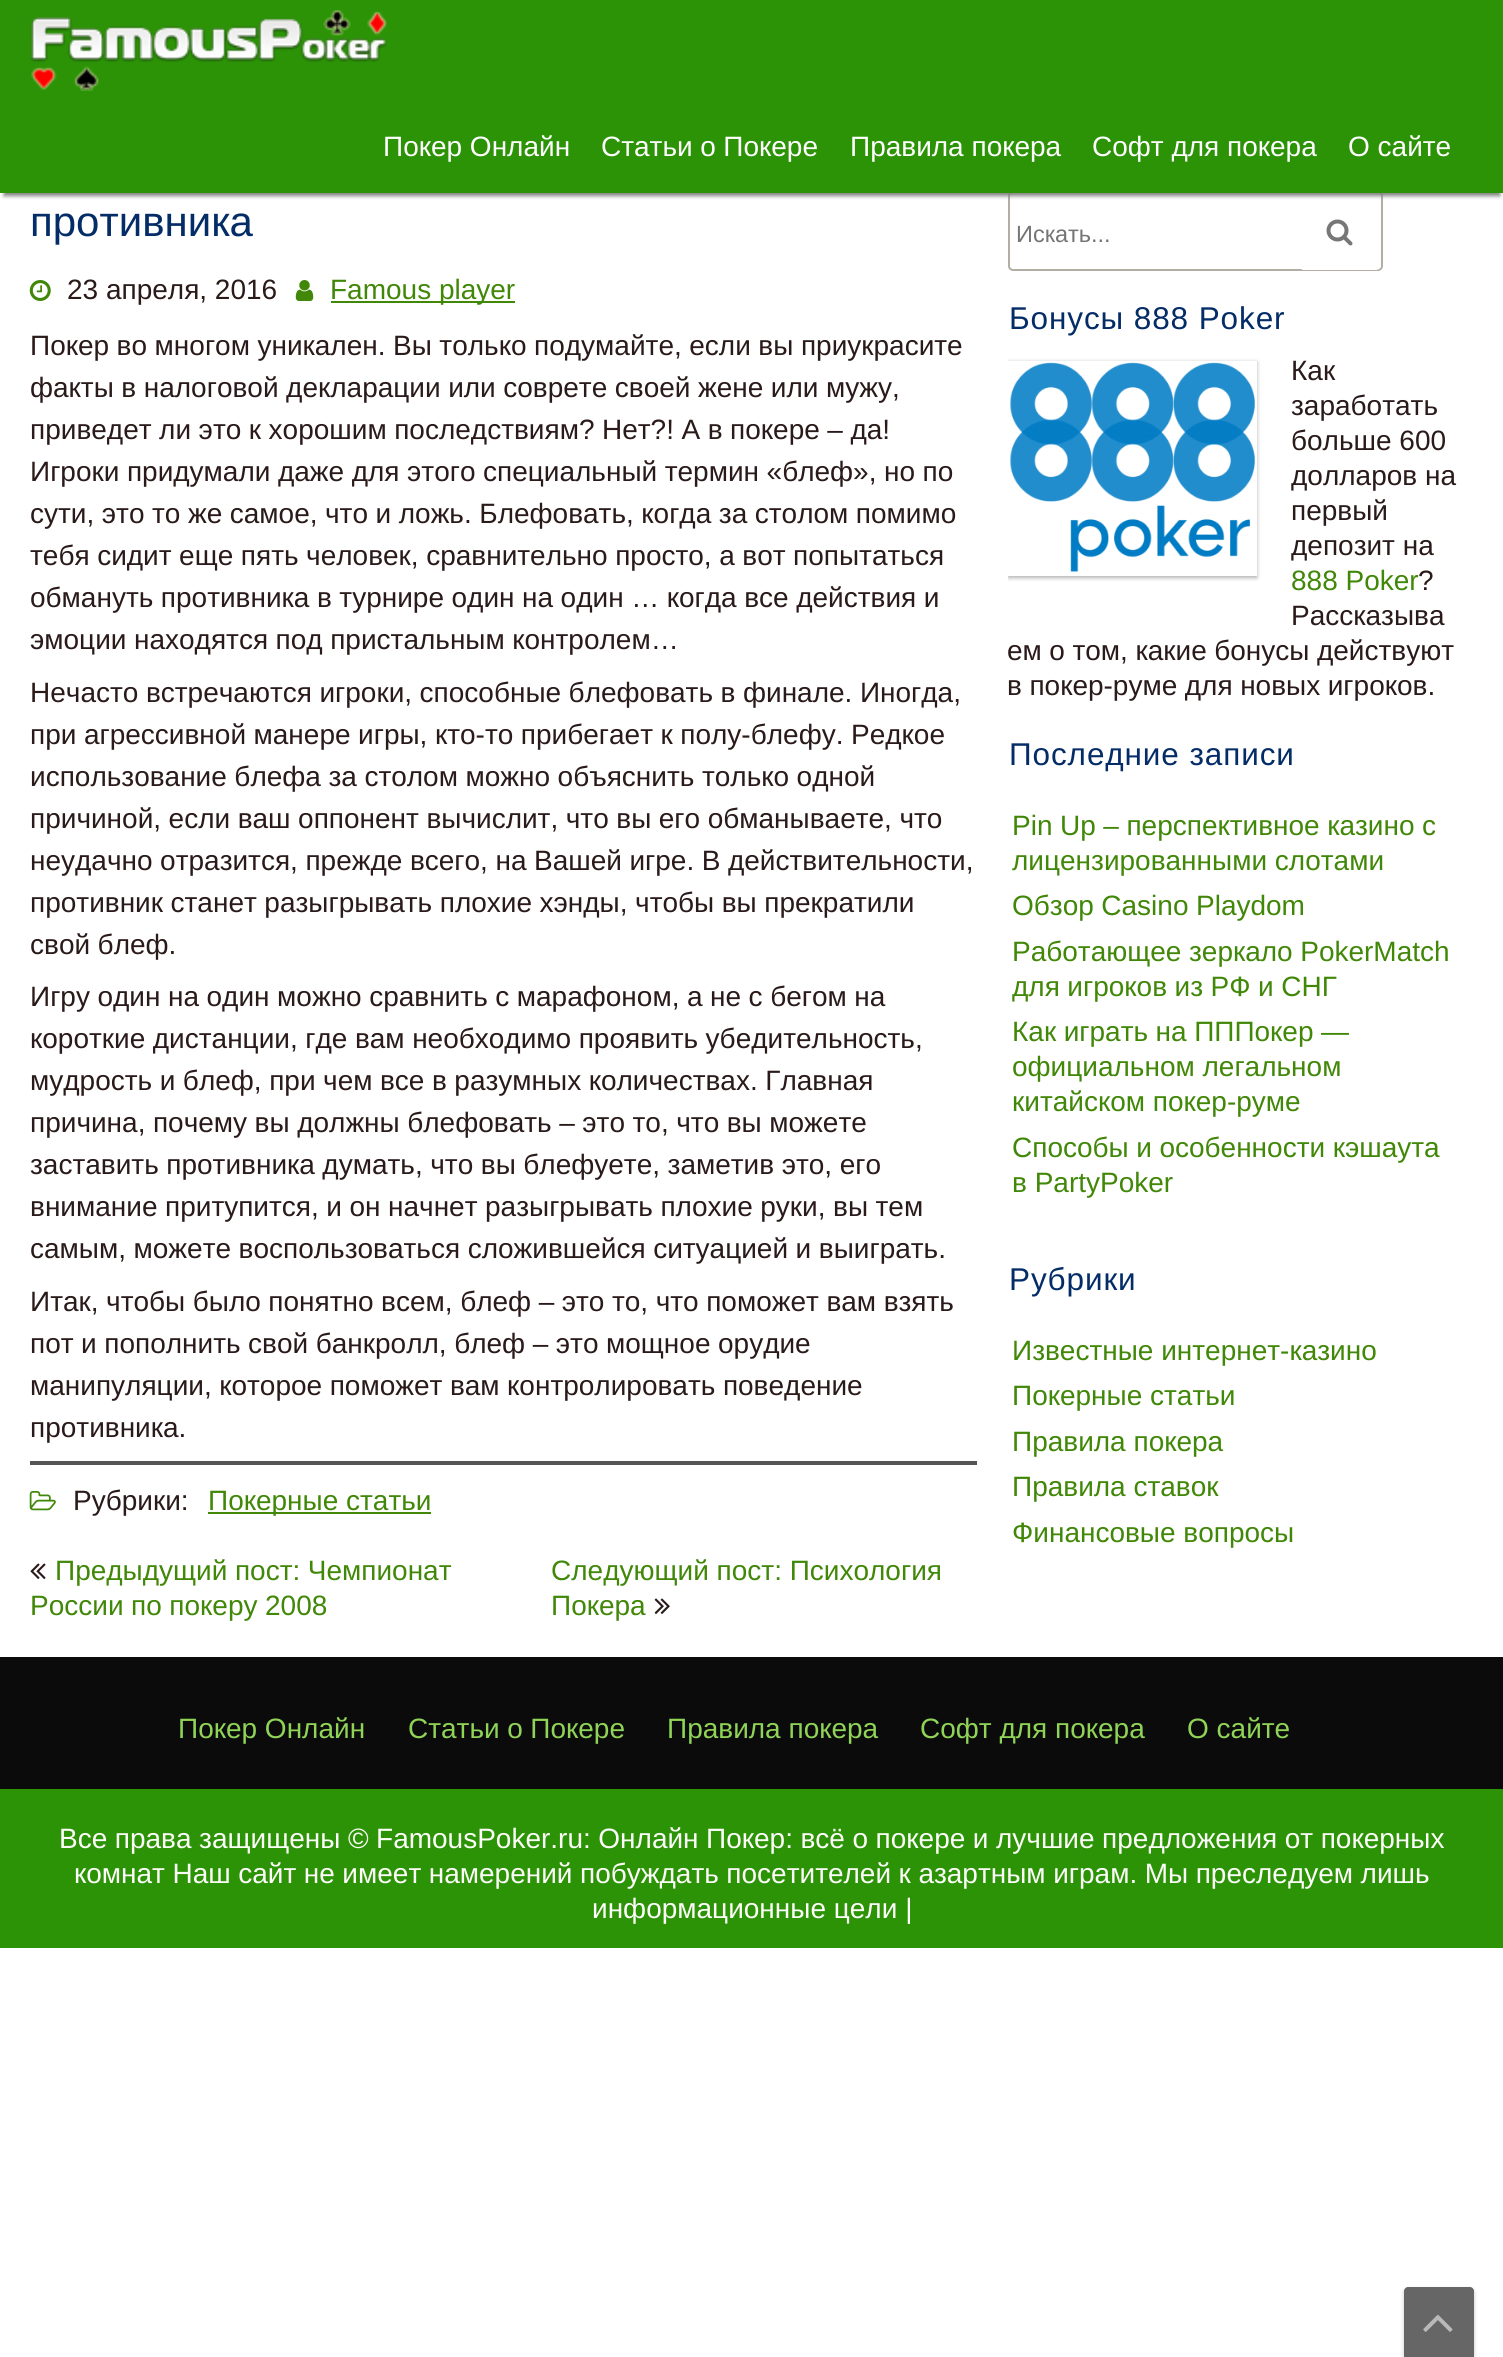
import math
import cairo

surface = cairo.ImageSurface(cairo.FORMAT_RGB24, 1503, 2357)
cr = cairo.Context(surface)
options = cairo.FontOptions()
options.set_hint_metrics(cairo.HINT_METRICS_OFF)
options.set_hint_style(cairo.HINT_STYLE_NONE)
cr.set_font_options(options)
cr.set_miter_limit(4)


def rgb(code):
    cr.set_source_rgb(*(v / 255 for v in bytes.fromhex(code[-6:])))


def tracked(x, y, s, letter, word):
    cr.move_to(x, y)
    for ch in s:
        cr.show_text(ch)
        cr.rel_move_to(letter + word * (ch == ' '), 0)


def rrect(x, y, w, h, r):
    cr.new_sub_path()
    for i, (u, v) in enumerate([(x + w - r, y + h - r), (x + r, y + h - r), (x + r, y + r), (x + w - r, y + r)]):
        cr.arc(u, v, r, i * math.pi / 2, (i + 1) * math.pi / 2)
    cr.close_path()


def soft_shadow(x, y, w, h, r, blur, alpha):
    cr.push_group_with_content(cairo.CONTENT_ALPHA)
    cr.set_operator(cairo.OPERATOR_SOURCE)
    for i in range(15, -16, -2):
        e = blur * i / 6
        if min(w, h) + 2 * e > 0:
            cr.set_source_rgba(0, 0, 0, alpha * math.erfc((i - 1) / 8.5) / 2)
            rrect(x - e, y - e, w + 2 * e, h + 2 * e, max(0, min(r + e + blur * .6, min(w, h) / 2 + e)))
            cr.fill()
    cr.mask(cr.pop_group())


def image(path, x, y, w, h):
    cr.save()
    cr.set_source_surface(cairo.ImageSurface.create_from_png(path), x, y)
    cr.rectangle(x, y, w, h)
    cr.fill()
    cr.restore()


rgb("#ffffff")
cr.paint()
rrect(1009, 192, 373, 78, 4)
rgb("#b2aea3")
cr.stroke()
rgb("#ffffff")
rrect(1299, 193, 82, 77, 5)
cr.fill()
rgb("#808080")
soft_shadow(4, 11, 1496, 185, 0, 2, 1)
rgb("#2c9307")
cr.rectangle(0, 0, 1503, 193)
cr.fill()
image("img/1.png", 30, 9, 357, 82)
image("img/2.png", 29, 280, 22, 21)
image("img/3.png", 295, 280, 19, 21)
rgb("#418708")
cr.rectangle(331, 301, 184, 2)
cr.fill()
rgb("#555555")
cr.rectangle(30, 1461, 947, 4)
cr.fill()
image("img/4.png", 29, 1491, 27, 20)
rgb("#418708")
cr.rectangle(208, 1512, 223, 2)
cr.fill()
image("img/5.png", 30, 1563, 16, 16)
image("img/6.png", 654, 1598, 16, 16)
image("img/7.png", 1326, 219, 27, 27)
cr.save()
cr.rectangle(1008, 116, 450, 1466)
cr.clip()
cr.set_fill_rule(cairo.FILL_RULE_EVEN_ODD)
cr.new_path()
cr.move_to(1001, 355)
cr.line_to(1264, 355)
cr.line_to(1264, 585)
cr.line_to(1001, 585)
cr.close_path()
cr.move_to(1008, 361)
cr.line_to(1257, 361)
cr.line_to(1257, 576)
cr.line_to(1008, 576)
cr.close_path()
cr.clip()
rgb("#000000")
soft_shadow(1008, 362, 249, 216, 0, 2, 0.3)
cr.restore()
image("img/8.png", 1009, 362, 246, 210)
rgb("#0b0b0b")
cr.rectangle(0, 1657, 1503, 132)
cr.fill()
rgb("#2c9307")
cr.rectangle(0, 1789, 1503, 159)
cr.fill()
rgb("#1a1a1a")
soft_shadow(1404, 2289, 70, 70, 4, 2, 0.25)
rgb("#666666")
cr.new_path()
cr.move_to(1408, 2287)
cr.line_to(1470, 2287)
cr.curve_to(1472, 2287, 1474, 2289, 1474, 2291)
cr.line_to(1474, 2357)
cr.line_to(1404, 2357)
cr.line_to(1404, 2291)
cr.curve_to(1404, 2289, 1406, 2287, 1408, 2287)
cr.close_path()
cr.fill()
image("img/9.png", 1423, 2314, 30, 18)
cr.select_font_face("Liberation Sans")
cr.set_font_size(28)
rgb("#ffffff")
cr.move_to(383, 156)
cr.show_text("Покер Онлайн")
tracked(601, 156, "Статьи о Покере", 0, -0.25)
for x, y, s in [
    (850, 156, "Правила покера"),
    (1092, 156, "Софт для покера"),
    (1348, 156, "О сайте"),
]:
    cr.move_to(x, y)
    cr.show_text(s)
cr.set_font_size(42)
rgb("#042c67")
cr.move_to(30, 236)
cr.show_text("противника")
cr.set_font_size(28)
rgb("#2a1a1a")
cr.move_to(67, 299)
cr.show_text("23 апреля, 2016")
rgb("#418708")
cr.move_to(330, 299)
cr.show_text("Famous player")
rgb("#2a1a1a")
for x, y, s in [
    (30, 355, "Покер во многом уникален. Вы только подумайте, если вы приукрасите"),
    (30, 397, "факты в налоговой декларации или соврете своей жене или мужу,"),
    (30, 439, "приведет ли это к хорошим последствиям? Нет?! А в покере – да!"),
    (30, 481, "Игроки придумали даже для этого специальный термин «блеф», но по"),
    (30, 523, "сути, это то же самое, что и ложь. Блефовать, когда за столом помимо"),
    (30, 565, "тебя сидит еще пять человек, сравнительно просто, а вот попытаться"),
    (30, 607, "обмануть противника в турнире один на один … когда все действия и"),
    (30, 649, "эмоции находятся под пристальным контролем…"),
    (30, 702, "Нечасто встречаются игроки, способные блефовать в финале. Иногда,"),
    (30, 744, "при агрессивной манере игры, кто-то прибегает к полу-блефу. Редкое"),
    (30, 786, "использование блефа за столом можно объяснить только одной"),
    (30, 828, "причиной, если ваш оппонент вычислит, что вы его обманываете, что"),
    (30, 870, "неудачно отразится, прежде всего, на Вашей игре. В действительности,"),
    (30, 912, "противник станет разыгрывать плохие хэнды, чтобы вы прекратили"),
    (30, 954, "свой блеф."),
    (30, 1006, "Игру один на один можно сравнить с марафоном, а не с бегом на"),
    (30, 1048, "короткие дистанции, где вам необходимо проявить убедительность,"),
    (30, 1090, "мудрость и блеф, при чем все в разумных количествах. Главная"),
    (30, 1132, "причина, почему вы должны блефовать – это то, что вы можете"),
    (30, 1174, "заставить противника думать, что вы блефуете, заметив это, его"),
    (30, 1216, "внимание притупится, и он начнет разыгрывать плохие руки, вы тем"),
    (30, 1258, "самым, можете воспользоваться сложившейся ситуацией и выиграть."),
    (30, 1311, "Итак, чтобы было понятно всем, блеф – это то, что поможет вам взять"),
    (30, 1353, "пот и пополнить свой банкролл, блеф – это мощное орудие"),
    (30, 1395, "манипуляции, которое поможет вам контролировать поведение"),
]:
    tracked(x, y, s, 0, -0.25)
cr.move_to(30, 1437)
cr.show_text("противника.")
cr.move_to(73, 1510)
cr.show_text("Рубрики:")
rgb("#418708")
cr.move_to(208, 1510)
cr.show_text("Покерные статьи")
tracked(55, 1580, "Предыдущий пост: Чемпионат", 0, -0.25)
tracked(30, 1615, "России по покеру 2008", 0, -0.25)
cr.move_to(551, 1580)
cr.show_text("Следующий пост: Психология")
cr.move_to(551, 1615)
cr.show_text("Покера")
cr.set_font_size(23.5)
rgb("#757575")
cr.move_to(1016, 242)
cr.show_text("Искать...")
cr.set_font_size(31.5)
rgb("#042c67")
tracked(1009, 329, "Бонусы 888 Poker", 0.9, 0)
cr.set_font_size(28)
rgb("#2a1a1a")
for x, y, s in [
    (1291, 380, "Как"),
    (1291, 415, "заработать"),
    (1291, 450, "больше 600"),
    (1291, 485, "долларов на"),
    (1291, 520, "первый"),
    (1291, 555, "депозит на"),
]:
    cr.move_to(x, y)
    cr.show_text(s)
rgb("#418708")
cr.move_to(1291, 590)
cr.show_text("888 Poker")
rgb("#2a1a1a")
cr.move_to(1418, 590)
cr.show_text("?")
cr.move_to(1291, 625)
cr.show_text("Рассказыва")
tracked(1007, 660, "ем о том, какие бонусы действуют", 0, -0.25)
tracked(1007, 695, "в покер-руме для новых игроков.", 0, -0.25)
cr.set_font_size(31.5)
rgb("#042c67")
tracked(1009, 765, "Последние записи", 0.9, 0)
cr.set_font_size(28)
rgb("#418708")
tracked(1012, 835, "Pin Up – перспективное казино с", 0, -0.25)
cr.move_to(1012, 870)
cr.show_text("лицензированными слотами")
for x, y, s in [
    (1012, 915, "Обзор Casino Playdom"),
    (1012, 961, "Работающее зеркало PokerMatch"),
    (1012, 996, "для игроков из РФ и СНГ"),
    (1012, 1041, "Как играть на ПППокер —"),
]:
    tracked(x, y, s, 0, -0.25)
cr.move_to(1012, 1076)
cr.show_text("официальном легальном")
cr.move_to(1012, 1111)
cr.show_text("китайском покер-руме")
tracked(1012, 1157, "Способы и особенности кэшаута", 0, -0.25)
cr.move_to(1012, 1192)
cr.show_text("в PartyPoker")
cr.set_font_size(31.5)
rgb("#042c67")
tracked(1009, 1290, "Рубрики", 0.9, 0)
cr.set_font_size(28)
rgb("#418708")
for x, y, s in [
    (1012, 1360, "Известные интернет-казино"),
    (1012, 1405, "Покерные статьи"),
    (1012, 1451, "Правила покера"),
    (1012, 1496, "Правила ставок"),
    (1012, 1542, "Финансовые вопросы"),
]:
    cr.move_to(x, y)
    cr.show_text(s)
rgb("#8fd457")
cr.move_to(178, 1738)
cr.show_text("Покер Онлайн")
tracked(408, 1738, "Статьи о Покере", 0, -0.25)
for x, y, s in [
    (667, 1738, "Правила покера"),
    (920, 1738, "Софт для покера"),
    (1187, 1738, "О сайте"),
]:
    cr.move_to(x, y)
    cr.show_text(s)
rgb("#fcfdf8")
tracked(59, 1848, "Все права защищены © FamousPoker.ru: Онлайн Покер: всё о покере и лучшие предложения от покерных", 0, -0.25)
tracked(74, 1883, "комнат Наш сайт не имеет намерений побуждать посетителей к азартным играм. Мы преследуем лишь", 0, -0.25)
cr.move_to(592, 1918)
cr.show_text("информационные цели |")
surface.write_to_png("page.png")
